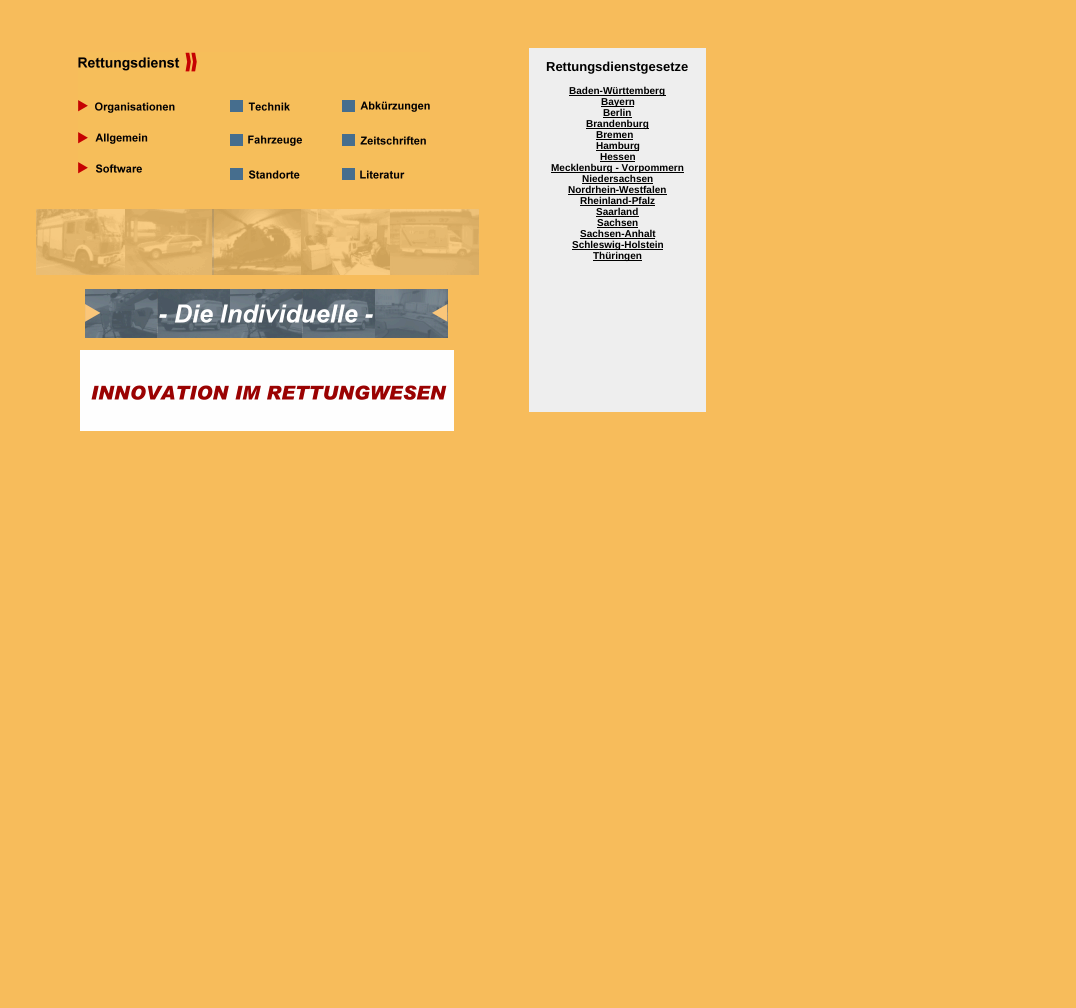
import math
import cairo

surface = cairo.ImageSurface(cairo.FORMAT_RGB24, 1076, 1008)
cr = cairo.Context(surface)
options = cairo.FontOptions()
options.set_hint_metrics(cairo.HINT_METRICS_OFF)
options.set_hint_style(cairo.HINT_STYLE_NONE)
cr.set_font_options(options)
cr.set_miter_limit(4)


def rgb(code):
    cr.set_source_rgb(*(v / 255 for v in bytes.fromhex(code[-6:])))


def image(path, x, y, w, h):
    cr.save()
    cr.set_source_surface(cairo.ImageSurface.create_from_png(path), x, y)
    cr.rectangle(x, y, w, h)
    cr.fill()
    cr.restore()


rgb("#f7bc5b")
cr.paint()
image("img/1.png", 78, 52, 352, 128)
for x, y, w, h, color in [
    (529, 48, 177, 364, "#eeeeee"),
    (569, 95, 97, 1, "#000000"),
    (601, 106, 33, 1, "#000000"),
    (603, 117, 29, 1, "#000000"),
    (586, 128, 63, 1, "#000000"),
    (596, 139, 37, 1, "#000000"),
    (596, 150, 43, 1, "#000000"),
    (600, 161, 35, 1, "#000000"),
    (551, 172, 133, 1, "#000000"),
    (582, 183, 71, 1, "#000000"),
    (568, 194, 99, 1, "#000000"),
    (580, 205, 75, 1, "#000000"),
    (596, 216, 43, 1, "#000000"),
    (597, 227, 41, 1, "#000000"),
    (580, 238, 75, 1, "#000000"),
    (572, 249, 91, 1, "#000000"),
    (593, 260, 49, 1, "#000000"),
]:
    rgb(color)
    cr.rectangle(x, y, w, h)
    cr.fill()
image("img/2.png", 36, 209, 443, 66)
image("img/3.png", 85, 289, 363, 49)
image("img/4.png", 80, 350, 374, 81)
cr.select_font_face("Liberation Sans", cairo.FONT_SLANT_NORMAL, cairo.FONT_WEIGHT_BOLD)
cr.set_font_size(13)
cr.move_to(546, 71)
cr.show_text("Rettungsdienstgesetze")
cr.set_font_size(10)
for x, y, s in [
    (569, 94, "Baden-Württemberg"),
    (601, 105, "Bayern"),
    (603, 116, "Berlin"),
    (586, 127, "Brandenburg"),
    (596, 138, "Bremen"),
    (596, 149, "Hamburg"),
    (600, 160, "Hessen"),
    (551, 171, "Mecklenburg - Vorpommern"),
    (582, 182, "Niedersachsen"),
    (568, 193, "Nordrhein-Westfalen"),
    (580, 204, "Rheinland-Pfalz"),
    (596, 215, "Saarland"),
    (597, 226, "Sachsen"),
    (580, 237, "Sachsen-Anhalt"),
    (572, 248, "Schleswig-Holstein"),
    (593, 259, "Thüringen"),
]:
    cr.move_to(x, y)
    cr.show_text(s)
surface.write_to_png("page.png")
